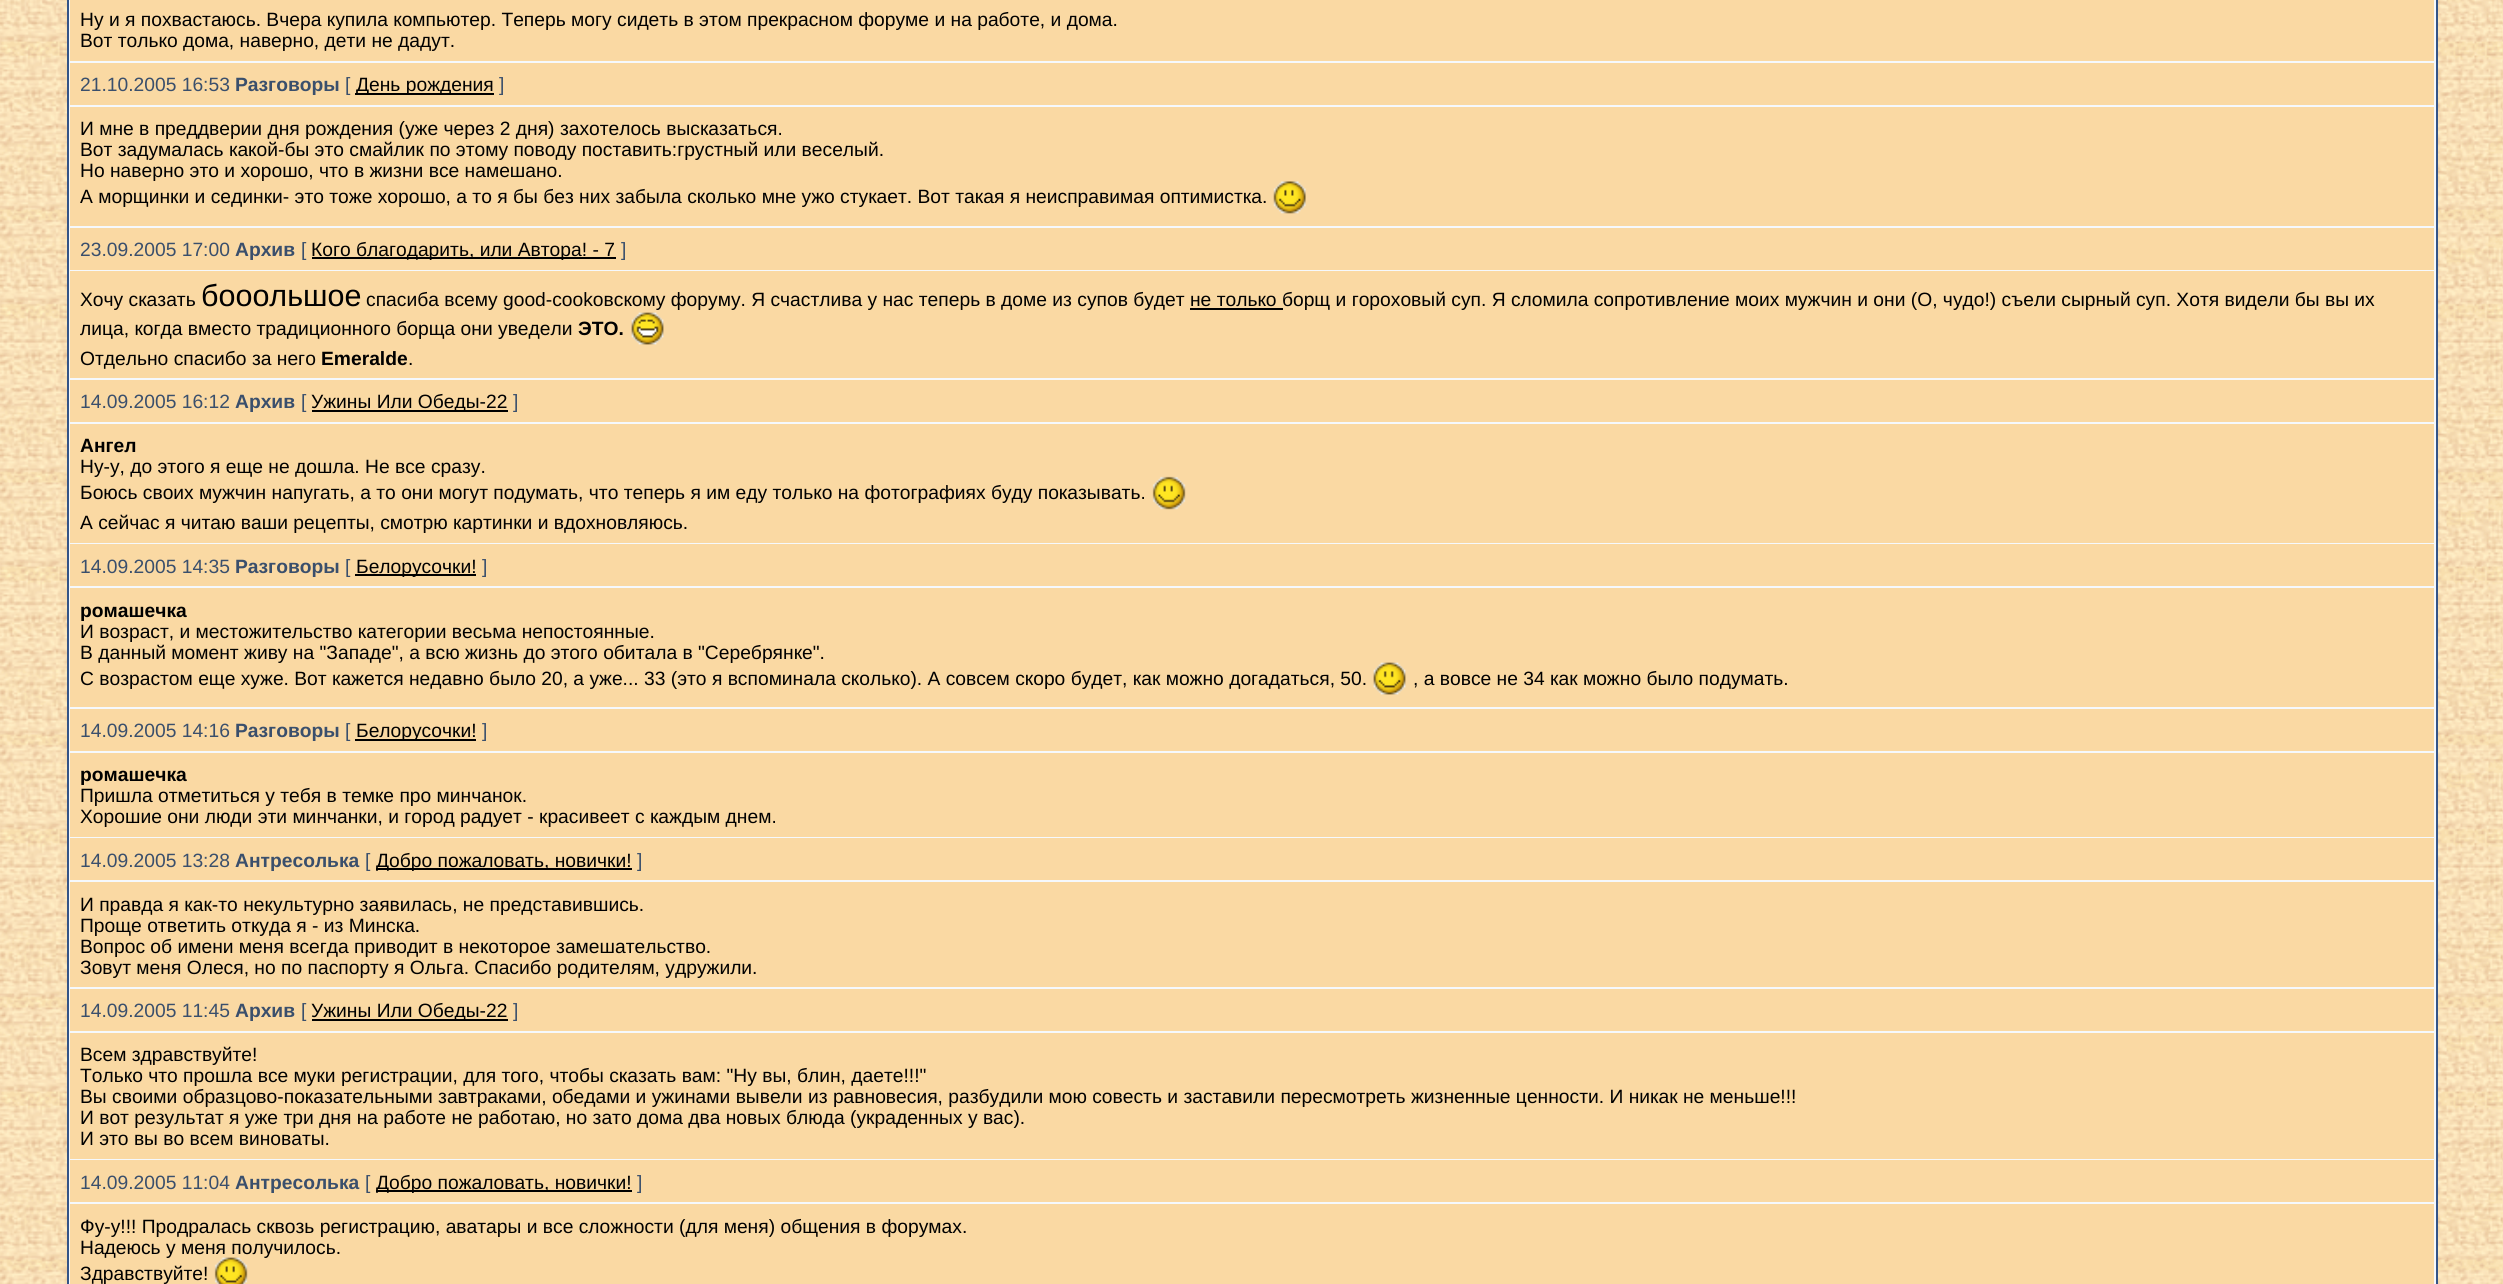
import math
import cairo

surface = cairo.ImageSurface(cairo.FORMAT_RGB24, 2503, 1284)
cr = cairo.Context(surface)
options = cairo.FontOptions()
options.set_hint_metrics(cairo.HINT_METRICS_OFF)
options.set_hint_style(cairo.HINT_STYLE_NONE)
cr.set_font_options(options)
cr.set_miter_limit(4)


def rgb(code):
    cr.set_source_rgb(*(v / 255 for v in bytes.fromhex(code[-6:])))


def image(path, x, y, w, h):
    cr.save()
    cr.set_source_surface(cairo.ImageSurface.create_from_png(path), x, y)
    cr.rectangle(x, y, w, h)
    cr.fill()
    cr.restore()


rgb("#ffffff")
cr.paint()
image("img/1.png", 0, 0, 2503, 1284)
rgb("#f5f9fd")
cr.rectangle(68, -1, 2369, 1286)
cr.fill_preserve()
rgb("#345487")
cr.stroke()
for x, y, w, h, color in [
    (70, 0, 2364, 61, "#fad9a3"),
    (70, 63, 2364, 42, "#fad9a3"),
    (355, 93, 139, 2, "#000000"),
    (70, 107, 2364, 119, "#fad9a3"),
]:
    rgb(color)
    cr.rectangle(x, y, w, h)
    cr.fill()
image("img/2.png", 1273, 181, 33, 33)
for x, y, w, h, color in [
    (70, 228, 2364, 42, "#fad9a3"),
    (312, 257, 304, 2, "#000000"),
    (70, 271, 2364, 107, "#fad9a3"),
    (1190, 308, 93, 2, "#000000"),
]:
    rgb(color)
    cr.rectangle(x, y, w, h)
    cr.fill()
image("img/3.png", 631, 312, 33, 33)
for x, y, w, h, color in [
    (70, 380, 2364, 42, "#fad9a3"),
    (312, 410, 196, 2, "#000000"),
    (70, 424, 2364, 119, "#fad9a3"),
]:
    rgb(color)
    cr.rectangle(x, y, w, h)
    cr.fill()
image("img/4.png", 1152, 476, 34, 34)
for x, y, w, h, color in [
    (70, 544, 2364, 42, "#fad9a3"),
    (355, 574, 121, 2, "#000000"),
    (70, 588, 2364, 119, "#fad9a3"),
]:
    rgb(color)
    cr.rectangle(x, y, w, h)
    cr.fill()
image("img/5.png", 1373, 662, 33, 33)
for x, y, w, h, color in [
    (70, 709, 2364, 42, "#fad9a3"),
    (355, 739, 121, 2, "#000000"),
    (70, 753, 2364, 84, "#fad9a3"),
    (70, 838, 2364, 42, "#fad9a3"),
    (376, 868, 256, 2, "#000000"),
    (70, 882, 2364, 105, "#fad9a3"),
    (70, 989, 2364, 42, "#fad9a3"),
    (312, 1019, 196, 2, "#000000"),
    (70, 1033, 2364, 126, "#fad9a3"),
    (70, 1160, 2364, 42, "#fad9a3"),
    (376, 1190, 256, 2, "#000000"),
    (70, 1204, 2364, 80, "#fad9a3"),
]:
    rgb(color)
    cr.rectangle(x, y, w, h)
    cr.fill()
cr.select_font_face("Liberation Sans")
cr.set_font_size(19.25)
rgb("#000000")
cr.move_to(80, 26)
cr.show_text("Ну и я похвастаюсь. Вчера купила компьютер. Теперь могу сидеть в этом прекрасном форуме и на работе, и дома.")
cr.move_to(80, 47)
cr.show_text("Вот только дома, наверно, дети не дадут.")
rgb("#3a4f6c")
cr.move_to(80, 91)
cr.show_text("21.10.2005 16:53")
cr.select_font_face("Liberation Sans", cairo.FONT_SLANT_NORMAL, cairo.FONT_WEIGHT_BOLD)
cr.move_to(235, 91)
cr.show_text("Разговоры")
cr.select_font_face("Liberation Sans")
cr.move_to(345, 91)
cr.show_text("[")
rgb("#000000")
cr.move_to(356, 91)
cr.show_text("День рождения")
rgb("#3a4f6c")
cr.move_to(499, 91)
cr.show_text("]")
rgb("#000000")
for x, y, s in [
    (80, 135, "И мне в преддверии дня рождения (уже через 2 дня) захотелось высказаться."),
    (80, 156, "Вот задумалась какой-бы это смайлик по этому поводу поставить:грустный или веселый."),
    (80, 177, "Но наверно это и хорошо, что в жизни все намешано."),
    (80, 203, "А морщинки и сединки- это тоже хорошо, а то я бы без них забыла сколько мне ужо стукает. Вот такая я неисправимая оптимистка."),
]:
    cr.move_to(x, y)
    cr.show_text(s)
rgb("#3a4f6c")
cr.move_to(80, 256)
cr.show_text("23.09.2005 17:00")
cr.select_font_face("Liberation Sans", cairo.FONT_SLANT_NORMAL, cairo.FONT_WEIGHT_BOLD)
cr.move_to(235, 256)
cr.show_text("Архив")
cr.select_font_face("Liberation Sans")
cr.move_to(301, 256)
cr.show_text("[")
rgb("#000000")
cr.move_to(311, 256)
cr.show_text("Кого благодарить, или Автора! - 7")
rgb("#3a4f6c")
cr.move_to(621, 256)
cr.show_text("]")
rgb("#000000")
cr.move_to(80, 306)
cr.show_text("Хочу сказать")
cr.set_font_size(30.5)
cr.move_to(201, 306)
cr.show_text("бооольшое")
cr.set_font_size(19.25)
cr.move_to(366, 306)
cr.show_text("спасиба всему good-cookовскому форуму. Я счастлива у нас теперь в доме из супов будет не только борщ и гороховый суп. Я сломила сопротивление моих мужчин и они (О, чудо!) съели сырный суп. Хотя видели бы вы их")
cr.move_to(80, 335)
cr.show_text("лица, когда вместо традиционного борща они уведели")
cr.select_font_face("Liberation Sans", cairo.FONT_SLANT_NORMAL, cairo.FONT_WEIGHT_BOLD)
cr.move_to(578, 335)
cr.show_text("ЭТО.")
cr.select_font_face("Liberation Sans")
cr.move_to(80, 365)
cr.show_text("Отдельно спасибо за него")
cr.select_font_face("Liberation Sans", cairo.FONT_SLANT_NORMAL, cairo.FONT_WEIGHT_BOLD)
cr.move_to(321, 365)
cr.show_text("Еmeralde")
cr.select_font_face("Liberation Sans")
cr.move_to(408, 365)
cr.show_text(".")
rgb("#3a4f6c")
cr.move_to(80, 408)
cr.show_text("14.09.2005 16:12")
cr.select_font_face("Liberation Sans", cairo.FONT_SLANT_NORMAL, cairo.FONT_WEIGHT_BOLD)
cr.move_to(235, 408)
cr.show_text("Архив")
cr.select_font_face("Liberation Sans")
cr.move_to(301, 408)
cr.show_text("[")
rgb("#000000")
cr.move_to(311, 408)
cr.show_text("Ужины Или Обеды-22")
rgb("#3a4f6c")
cr.move_to(513, 408)
cr.show_text("]")
cr.select_font_face("Liberation Sans", cairo.FONT_SLANT_NORMAL, cairo.FONT_WEIGHT_BOLD)
rgb("#000000")
cr.move_to(80, 452)
cr.show_text("Ангел")
cr.select_font_face("Liberation Sans")
for x, y, s in [
    (80, 473, "Ну-у, до этого я еще не дошла. Не все сразу."),
    (80, 499, "Боюсь своих мужчин напугать, а то они могут подумать, что теперь я им еду только на фотографиях буду показывать."),
    (80, 529, "А сейчас я читаю ваши рецепты, смотрю картинки и вдохновляюсь."),
]:
    cr.move_to(x, y)
    cr.show_text(s)
rgb("#3a4f6c")
cr.move_to(80, 573)
cr.show_text("14.09.2005 14:35")
cr.select_font_face("Liberation Sans", cairo.FONT_SLANT_NORMAL, cairo.FONT_WEIGHT_BOLD)
cr.move_to(235, 573)
cr.show_text("Разговоры")
cr.select_font_face("Liberation Sans")
cr.move_to(345, 573)
cr.show_text("[")
rgb("#000000")
cr.move_to(356, 573)
cr.show_text("Белорусочки!")
rgb("#3a4f6c")
cr.move_to(482, 573)
cr.show_text("]")
cr.select_font_face("Liberation Sans", cairo.FONT_SLANT_NORMAL, cairo.FONT_WEIGHT_BOLD)
rgb("#000000")
cr.move_to(80, 617)
cr.show_text("ромашечка")
cr.select_font_face("Liberation Sans")
for x, y, s in [
    (80, 638, "И возраст, и местожительство категории весьма непостоянные."),
    (80, 659, "В данный момент живу на \"Западе\", а всю жизнь до этого обитала в \"Серебрянке\"."),
    (80, 685, "С возрастом еще хуже. Вот кажется недавно было 20, а уже... 33 (это я вспоминала сколько). А совсем скоро будет, как можно догадаться, 50."),
    (1413, 685, ", а вовсе не 34 как можно было подумать."),
]:
    cr.move_to(x, y)
    cr.show_text(s)
rgb("#3a4f6c")
cr.move_to(80, 737)
cr.show_text("14.09.2005 14:16")
cr.select_font_face("Liberation Sans", cairo.FONT_SLANT_NORMAL, cairo.FONT_WEIGHT_BOLD)
cr.move_to(235, 737)
cr.show_text("Разговоры")
cr.select_font_face("Liberation Sans")
cr.move_to(345, 737)
cr.show_text("[")
rgb("#000000")
cr.move_to(356, 737)
cr.show_text("Белорусочки!")
rgb("#3a4f6c")
cr.move_to(482, 737)
cr.show_text("]")
cr.select_font_face("Liberation Sans", cairo.FONT_SLANT_NORMAL, cairo.FONT_WEIGHT_BOLD)
rgb("#000000")
cr.move_to(80, 781)
cr.show_text("ромашечка")
cr.select_font_face("Liberation Sans")
cr.move_to(80, 802)
cr.show_text("Пришла отметиться у тебя в темке про минчанок.")
cr.move_to(80, 823)
cr.show_text("Хорошие они люди эти минчанки, и город радует - красивеет с каждым днем.")
rgb("#3a4f6c")
cr.move_to(80, 867)
cr.show_text("14.09.2005 13:28")
cr.select_font_face("Liberation Sans", cairo.FONT_SLANT_NORMAL, cairo.FONT_WEIGHT_BOLD)
cr.move_to(235, 867)
cr.show_text("Антресолька")
cr.select_font_face("Liberation Sans")
cr.move_to(365, 867)
cr.show_text("[")
rgb("#000000")
cr.move_to(376, 867)
cr.show_text("Добро пожаловать, новички!")
rgb("#3a4f6c")
cr.move_to(637, 867)
cr.show_text("]")
rgb("#000000")
for x, y, s in [
    (80, 911, "И правда я как-то некультурно заявилась, не представившись."),
    (80, 932, "Проще ответить откуда я - из Минска."),
    (80, 953, "Вопрос об имени меня всегда приводит в некоторое замешательство."),
    (80, 974, "Зовут меня Олеся, но по паспорту я Ольга. Спасибо родителям, удружили."),
]:
    cr.move_to(x, y)
    cr.show_text(s)
rgb("#3a4f6c")
cr.move_to(80, 1017)
cr.show_text("14.09.2005 11:45")
cr.select_font_face("Liberation Sans", cairo.FONT_SLANT_NORMAL, cairo.FONT_WEIGHT_BOLD)
cr.move_to(235, 1017)
cr.show_text("Архив")
cr.select_font_face("Liberation Sans")
cr.move_to(301, 1017)
cr.show_text("[")
rgb("#000000")
cr.move_to(311, 1017)
cr.show_text("Ужины Или Обеды-22")
rgb("#3a4f6c")
cr.move_to(513, 1017)
cr.show_text("]")
rgb("#000000")
for x, y, s in [
    (80, 1061, "Всем здравствуйте!"),
    (80, 1082, "Только что прошла все муки регистрации, для того, чтобы сказать вам: \"Ну вы, блин, даете!!!\""),
    (80, 1103, "Вы своими образцово-показательными завтраками, обедами и ужинами вывели из равновесия, разбудили мою совесть и заставили пересмотреть жизненные ценности. И никак не меньше!!!"),
    (80, 1124, "И вот результат я уже три дня на работе не работаю, но зато дома два новых блюда (украденных у вас)."),
    (80, 1145, "И это вы во всем виноваты."),
]:
    cr.move_to(x, y)
    cr.show_text(s)
rgb("#3a4f6c")
cr.move_to(80, 1189)
cr.show_text("14.09.2005 11:04")
cr.select_font_face("Liberation Sans", cairo.FONT_SLANT_NORMAL, cairo.FONT_WEIGHT_BOLD)
cr.move_to(235, 1189)
cr.show_text("Антресолька")
cr.select_font_face("Liberation Sans")
cr.move_to(365, 1189)
cr.show_text("[")
rgb("#000000")
cr.move_to(376, 1189)
cr.show_text("Добро пожаловать, новички!")
rgb("#3a4f6c")
cr.move_to(637, 1189)
cr.show_text("]")
rgb("#000000")
for x, y, s in [
    (80, 1233, "Фу-у!!! Продралась сквозь регистрацию, аватары и все сложности (для меня) общения в форумах."),
    (80, 1254, "Надеюсь у меня получилось."),
    (80, 1280, "Здравствуйте!"),
]:
    cr.move_to(x, y)
    cr.show_text(s)
image("img/6.png", 214, 1257, 34, 27)
surface.write_to_png("page.png")
